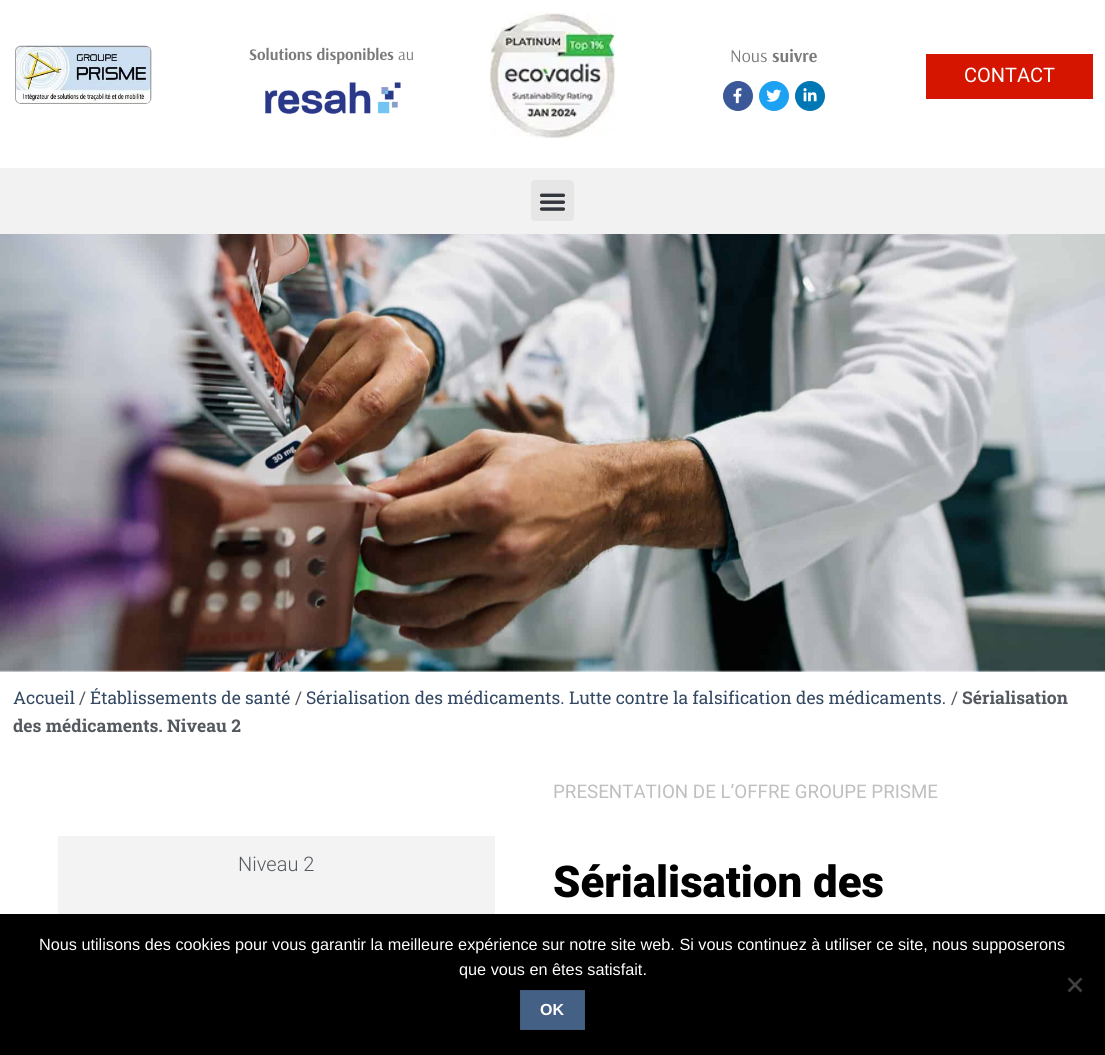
import math
import cairo

surface = cairo.ImageSurface(cairo.FORMAT_RGB24, 1105, 1055)
cr = cairo.Context(surface)
options = cairo.FontOptions()
options.set_hint_metrics(cairo.HINT_METRICS_OFF)
options.set_hint_style(cairo.HINT_STYLE_NONE)
cr.set_font_options(options)
cr.set_miter_limit(4)


def rgb(code):
    cr.set_source_rgb(*(v / 255 for v in bytes.fromhex(code[-6:])))


def rrect(x, y, w, h, r):
    cr.new_sub_path()
    for i, (u, v) in enumerate([(x + w - r, y + h - r), (x + r, y + h - r), (x + r, y + r), (x + w - r, y + r)]):
        cr.arc(u, v, r, i * math.pi / 2, (i + 1) * math.pi / 2)
    cr.close_path()


def image(path, x, y, w, h):
    cr.save()
    cr.set_source_surface(cairo.ImageSurface.create_from_png(path), x, y)
    cr.rectangle(x, y, w, h)
    cr.fill()
    cr.restore()


rgb("#ffffff")
cr.paint()
image("img/1.png", 15, 45, 137, 59)
image("img/2.png", 265, 82, 136, 32)
image("img/3.png", 490, 12, 125, 126)
rgb("#3b5998")
cr.arc(738, 96, 15, 0, 2 * math.pi)
cr.fill()
image("img/4.png", 733, 88, 9, 16)
rgb("#1da1f2")
cr.arc(774, 96, 15, 0, 2 * math.pi)
cr.fill()
image("img/5.png", 766, 89, 16, 13)
rgb("#0077b5")
cr.arc(810, 96, 15, 0, 2 * math.pi)
cr.fill()
image("img/6.png", 803, 88, 14, 14)
rgb("#d61500")
cr.rectangle(926, 54, 167, 45)
cr.fill()
rgb("#f2f2f2")
cr.rectangle(0, 168, 1105, 66)
cr.fill()
rgb("#e6e6e6")
rrect(531, 180, 43, 41, 4)
cr.fill()
image("img/7.png", 539, 193, 27, 18)
image("img/8.png", 0, 234, 1105, 438)
rgb("#f3f3f3")
cr.rectangle(58, 836, 437, 78)
cr.fill()
rgb("#000000")
cr.rectangle(0, 914, 1105, 141)
cr.fill()
rgb("#404040")
cr.new_path()
cr.move_to(1080.5, 977.5)
cr.line_to(1082.5, 979)
cr.line_to(1069.5, 992.5)
cr.line_to(1067.5, 990.5)
cr.close_path()
cr.fill()
cr.new_path()
cr.move_to(1067.5, 979)
cr.line_to(1069.5, 977.5)
cr.line_to(1082.5, 990.5)
cr.line_to(1080.5, 992.5)
cr.close_path()
cr.fill()
rgb("#446084")
cr.rectangle(520.5, 990.5, 64, 39)
cr.fill_preserve()
rgb("#415b7d")
cr.set_line_width(1)
cr.stroke()
cr.select_font_face("Arsenal", cairo.FONT_SLANT_NORMAL, cairo.FONT_WEIGHT_BOLD)
cr.set_font_size(16.25)
rgb("#7a7a7a")
cr.move_to(249, 60)
cr.show_text("Solutions disponibles")
cr.select_font_face("Arsenal")
cr.move_to(398, 60)
cr.show_text("au")
cr.set_font_size(18)
cr.move_to(730, 62)
cr.show_text("Nous")
cr.select_font_face("Arsenal", cairo.FONT_SLANT_NORMAL, cairo.FONT_WEIGHT_BOLD)
cr.move_to(772, 62)
cr.show_text("suivre")
cr.select_font_face("Roboto")
cr.set_font_size(20)
rgb("#ffffff")
cr.move_to(964, 82)
cr.show_text("CONTACT")
cr.select_font_face("Roboto Slab")
cr.set_font_size(17.5)
rgb("#334862")
cr.move_to(13, 704)
cr.show_text("Accueil")
rgb("#54595f")
cr.move_to(79, 704)
cr.show_text("/")
rgb("#334862")
cr.move_to(90, 704)
cr.show_text("Établissements de santé")
rgb("#54595f")
cr.move_to(295, 704)
cr.show_text("/")
rgb("#334862")
cr.move_to(306, 704)
cr.show_text("Sérialisation des médicaments. Lutte contre la falsification des médicaments.")
rgb("#54595f")
cr.move_to(951, 704)
cr.show_text("/")
cr.select_font_face("Roboto Slab", cairo.FONT_SLANT_NORMAL, cairo.FONT_WEIGHT_BOLD)
cr.move_to(962, 704)
cr.show_text("Sérialisation")
cr.move_to(13, 732)
cr.show_text("des médicaments. Niveau 2")
cr.select_font_face("Roboto Light")
cr.set_font_size(20)
cr.move_to(238, 871)
cr.show_text("Niveau 2")
cr.select_font_face("Roboto")
cr.set_font_size(18.75)
rgb("#bfbfbf")
cr.move_to(553, 798)
cr.show_text("PRESENTATION DE L’OFFRE GROUPE PRISME")
cr.select_font_face("Roboto Black")
cr.set_font_size(43.75)
rgb("#000000")
cr.move_to(553, 897)
cr.show_text("Sérialisation des")
cr.select_font_face("Liberation Sans")
cr.set_font_size(16.25)
rgb("#ffffff")
cr.move_to(39, 950)
cr.show_text("Nous utilisons des cookies pour vous garantir la meilleure expérience sur notre site web. Si vous continuez à utiliser ce site, nous supposerons")
cr.move_to(459, 975)
cr.show_text("que vous en êtes satisfait.")
cr.select_font_face("Liberation Sans", cairo.FONT_SLANT_NORMAL, cairo.FONT_WEIGHT_BOLD)
cr.set_font_size(16)
cr.move_to(540, 1015)
cr.show_text("OK")
surface.write_to_png("page.png")
